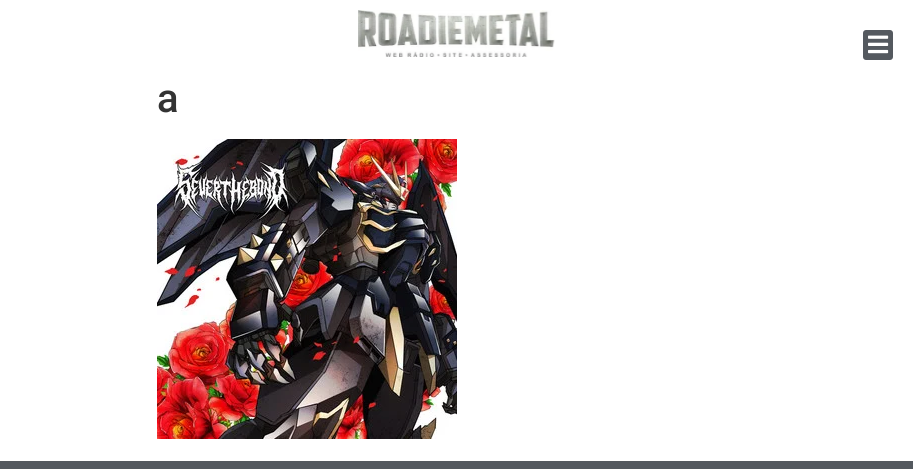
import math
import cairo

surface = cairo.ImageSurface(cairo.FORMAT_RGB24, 913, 469)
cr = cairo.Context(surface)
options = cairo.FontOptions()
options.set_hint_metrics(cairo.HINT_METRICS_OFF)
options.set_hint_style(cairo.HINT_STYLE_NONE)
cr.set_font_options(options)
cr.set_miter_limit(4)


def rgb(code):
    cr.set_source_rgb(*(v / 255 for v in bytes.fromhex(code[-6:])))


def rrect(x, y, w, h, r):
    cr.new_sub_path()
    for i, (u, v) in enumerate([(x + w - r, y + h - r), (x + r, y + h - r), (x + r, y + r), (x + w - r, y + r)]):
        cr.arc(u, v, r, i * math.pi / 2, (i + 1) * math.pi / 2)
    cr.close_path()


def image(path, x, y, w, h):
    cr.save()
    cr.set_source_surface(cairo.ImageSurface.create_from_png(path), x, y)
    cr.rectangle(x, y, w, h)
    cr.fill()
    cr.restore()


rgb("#ffffff")
cr.paint()
image("img/1.png", 358, 10, 197, 47)
rgb("#54595f")
rrect(863, 30, 30, 30, 3)
cr.fill()
image("img/2.png", 868, 35, 21, 19)
image("img/3.png", 157, 139, 300, 300)
cr.rectangle(0, 461, 913, 8)
cr.fill()
cr.select_font_face("Roboto Medium")
cr.set_font_size(40)
rgb("#333333")
cr.move_to(157, 112)
cr.show_text("a")
surface.write_to_png("page.png")
